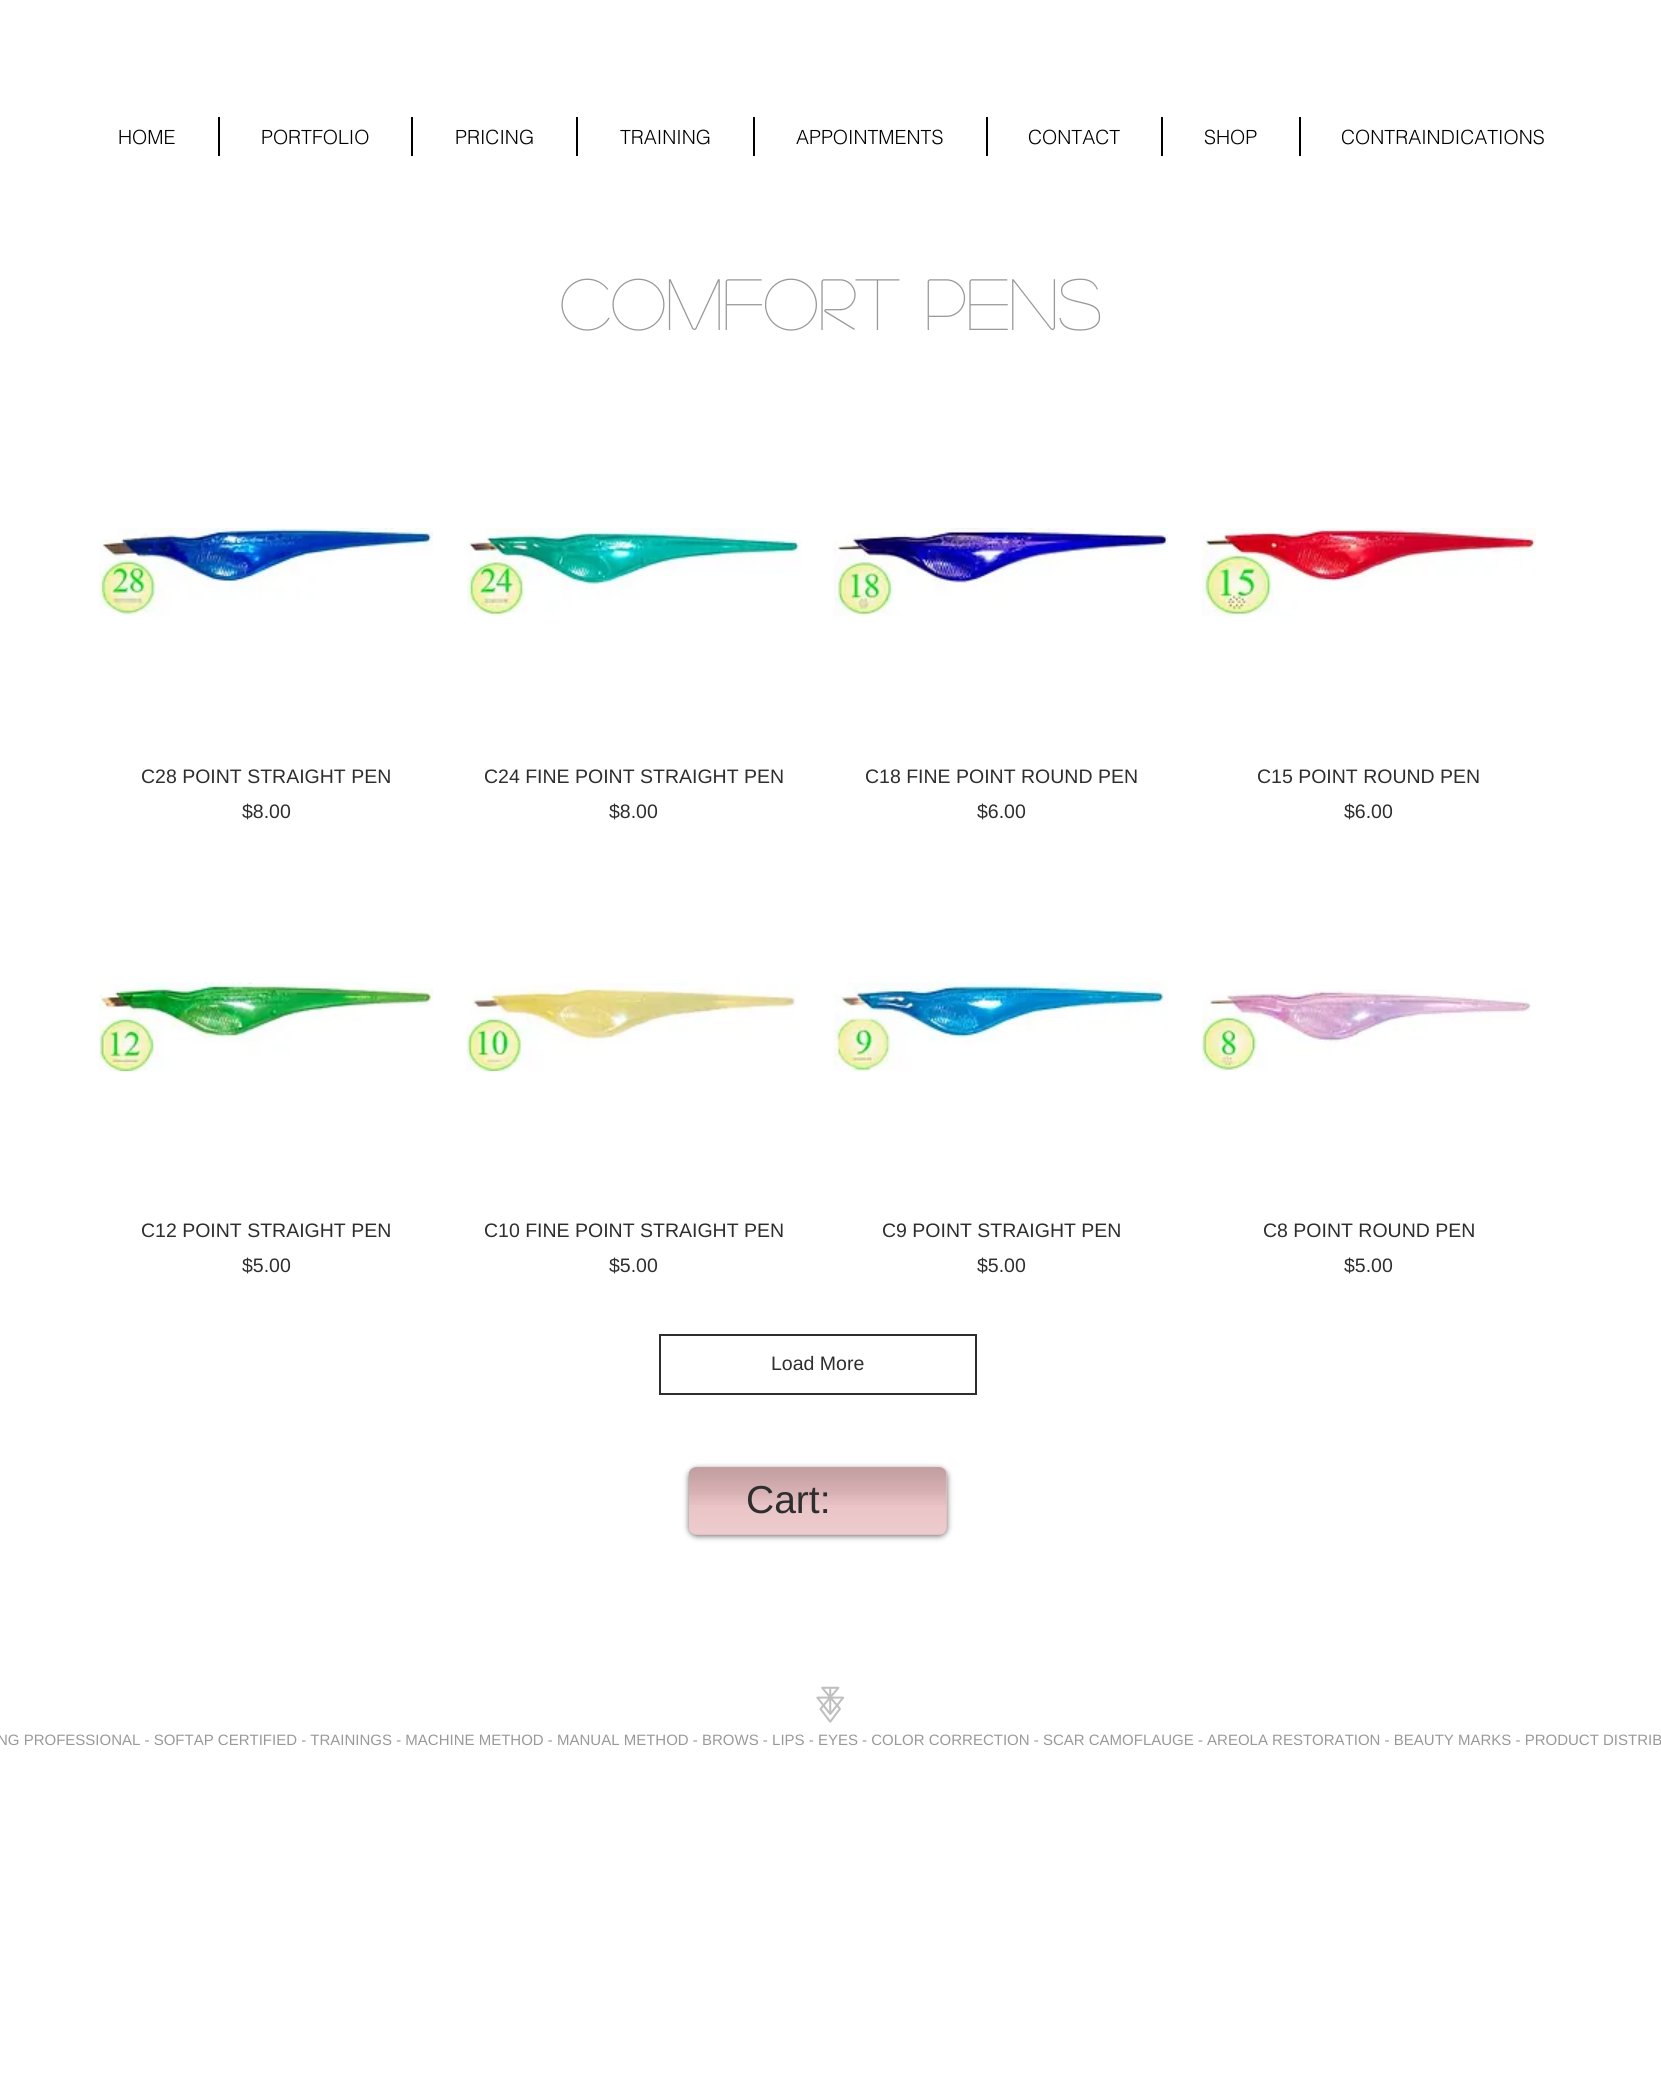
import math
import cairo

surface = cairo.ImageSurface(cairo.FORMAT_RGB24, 1661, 2085)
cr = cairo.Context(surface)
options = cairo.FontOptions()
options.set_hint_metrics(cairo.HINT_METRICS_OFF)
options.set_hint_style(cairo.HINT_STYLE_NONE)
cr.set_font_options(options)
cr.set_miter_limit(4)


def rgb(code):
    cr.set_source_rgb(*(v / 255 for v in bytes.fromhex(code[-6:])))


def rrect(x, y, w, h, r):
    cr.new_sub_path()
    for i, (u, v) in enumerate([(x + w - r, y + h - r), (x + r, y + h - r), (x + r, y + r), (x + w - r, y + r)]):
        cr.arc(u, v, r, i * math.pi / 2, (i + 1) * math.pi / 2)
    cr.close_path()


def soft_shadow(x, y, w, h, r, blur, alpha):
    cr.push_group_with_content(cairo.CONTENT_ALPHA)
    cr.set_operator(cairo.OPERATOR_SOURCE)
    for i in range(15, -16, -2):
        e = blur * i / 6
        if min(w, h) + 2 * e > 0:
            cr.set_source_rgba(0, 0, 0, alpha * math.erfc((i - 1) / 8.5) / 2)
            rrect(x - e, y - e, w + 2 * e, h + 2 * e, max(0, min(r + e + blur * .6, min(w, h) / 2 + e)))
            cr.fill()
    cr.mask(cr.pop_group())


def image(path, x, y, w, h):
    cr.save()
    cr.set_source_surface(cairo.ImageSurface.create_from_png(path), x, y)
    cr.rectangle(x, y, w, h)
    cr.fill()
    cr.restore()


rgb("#ffffff")
cr.paint()
for x, y, w, h, color in [
    (218, 117, 2, 39, "#000000"),
    (411, 117, 2, 39, "#000000"),
    (576, 117, 2, 39, "#000000"),
    (753, 117, 2, 39, "#000000"),
    (986, 117, 2, 39, "#000000"),
    (1161, 117, 2, 39, "#000000"),
    (1299, 117, 2, 39, "#000000"),
]:
    rgb(color)
    cr.rectangle(x, y, w, h)
    cr.fill()
image("img/1.png", 99, 528, 334, 88)
image("img/2.png", 467, 528, 334, 89)
image("img/3.png", 834, 528, 334, 89)
image("img/4.png", 1202, 528, 334, 89)
image("img/5.png", 99, 982, 334, 89)
image("img/6.png", 466, 983, 330, 88)
image("img/7.png", 834, 982, 334, 89)
image("img/8.png", 1201, 989, 330, 82)
cr.rectangle(660, 1335, 316, 59)
rgb("#2e2e2e")
cr.stroke()
rgb("#000000")
soft_shadow(689, 1469, 258, 67, 8, 3, 0.6)
rgb("#e8bec1")
rrect(689, 1467, 258, 68, 8)
cr.fill()
image("img/9.png", 688, 1467, 259, 38)
image("img/10.png", 689, 1495, 257, 39)
image("img/11.png", 816, 1686, 29, 37)
cr.select_font_face("helvetica Light")
cr.set_font_size(19.5)
rgb("#000000")
for x, y, s in [
    (118, 144, "HOME"),
    (261, 144, "PORTFOLIO"),
    (455, 144, "PRICING"),
    (620, 144, "TRAINING"),
    (796, 144, "APPOINTMENTS"),
    (1028, 144, "CONTACT"),
    (1204, 144, "SHOP"),
    (1341, 144, "CONTRAINDICATIONS"),
]:
    cr.move_to(x, y)
    cr.show_text(s)
cr.select_font_face("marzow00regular")
cr.set_font_size(72)
rgb("#999999")
cr.move_to(560, 330)
cr.show_text("COMFORT PENS")
cr.select_font_face("Liberation Sans")
cr.set_font_size(19.5)
rgb("#2e2e2e")
for x, y, s in [
    (141, 783, "C28 POINT STRAIGHT PEN"),
    (242, 818, "$8.00"),
    (484, 783, "C24 FINE POINT STRAIGHT PEN"),
    (609, 818, "$8.00"),
    (865, 783, "C18 FINE POINT ROUND PEN"),
    (977, 818, "$6.00"),
    (1257, 783, "C15 POINT ROUND PEN"),
    (1344, 818, "$6.00"),
    (141, 1237, "C12 POINT STRAIGHT PEN"),
    (242, 1272, "$5.00"),
    (484, 1237, "C10 FINE POINT STRAIGHT PEN"),
    (609, 1272, "$5.00"),
    (882, 1237, "C9 POINT STRAIGHT PEN"),
    (977, 1272, "$5.00"),
    (1263, 1237, "C8 POINT ROUND PEN"),
    (1344, 1272, "$5.00"),
    (771, 1370, "Load More"),
]:
    cr.move_to(x, y)
    cr.show_text(s)
cr.set_font_size(39)
cr.move_to(746, 1513)
cr.show_text("Cart:")
cr.set_font_size(15)
rgb("#999999")
cr.move_to(-3, 1745)
cr.show_text("NG PROFESSIONAL - SOFTAP CERTIFIED - TRAININGS - MACHINE METHOD - MANUAL METHOD - BROWS - LIPS - EYES - COLOR CORRECTION - SCAR CAMOFLAUGE - AREOLA RESTORATION - BEAUTY MARKS - PRODUCT DISTRIB")
surface.write_to_png("page.png")
